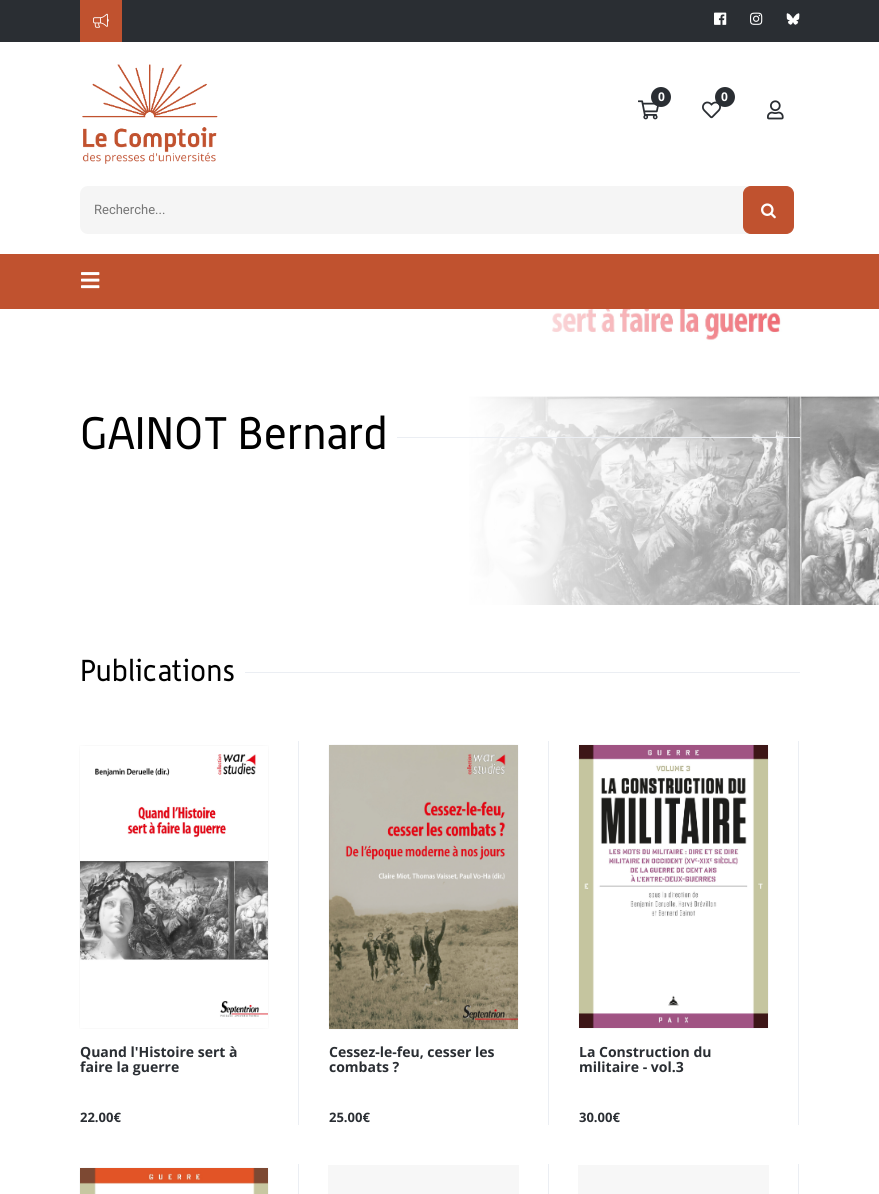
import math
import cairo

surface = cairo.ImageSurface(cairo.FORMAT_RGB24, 879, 1194)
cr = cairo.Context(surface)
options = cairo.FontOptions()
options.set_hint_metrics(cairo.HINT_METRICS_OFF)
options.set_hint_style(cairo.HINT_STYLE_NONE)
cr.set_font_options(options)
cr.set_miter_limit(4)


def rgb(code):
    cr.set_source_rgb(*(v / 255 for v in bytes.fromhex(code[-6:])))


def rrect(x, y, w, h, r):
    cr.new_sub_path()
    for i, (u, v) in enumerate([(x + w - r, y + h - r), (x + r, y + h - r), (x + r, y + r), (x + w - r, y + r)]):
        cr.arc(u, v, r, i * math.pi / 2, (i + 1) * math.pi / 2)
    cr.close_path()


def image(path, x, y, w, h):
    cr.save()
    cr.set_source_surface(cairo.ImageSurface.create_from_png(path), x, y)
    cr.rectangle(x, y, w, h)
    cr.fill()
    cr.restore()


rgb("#ffffff")
cr.paint()
rgb("#2a2e33")
cr.rectangle(0, 0, 879, 42)
cr.fill()
rgb("#c0522f")
cr.rectangle(80, 0, 42, 42)
cr.fill()
image("img/1.png", 93, 13, 16, 15)
image("img/2.png", 714, 12, 13, 13)
image("img/3.png", 750, 12, 13, 13)
image("img/4.png", 786, 13, 14, 12)
image("img/5.png", 82, 64, 136, 100)
image("img/6.png", 638, 100, 21, 20)
rgb("#2a2e33")
cr.arc(661, 97, 10, 0, 2 * math.pi)
cr.fill()
image("img/7.png", 702, 101, 19, 18)
cr.arc(725, 97, 10, 0, 2 * math.pi)
cr.fill()
image("img/8.png", 767, 100, 17, 20)
rgb("#f5f5f5")
cr.new_path()
cr.move_to(88, 186)
cr.line_to(750, 186)
cr.line_to(750, 234)
cr.line_to(88, 234)
cr.curve_to(83.5, 234, 80, 230.5, 80, 226)
cr.line_to(80, 194)
cr.curve_to(80, 189.5, 83.5, 186, 88, 186)
cr.close_path()
cr.fill()
rgb("#c0522f")
rrect(743.5, 186.5, 50, 47, 7.5)
cr.fill_preserve()
cr.set_line_width(1)
cr.stroke()
image("img/9.png", 761, 203, 15, 16)
cr.rectangle(0, 254, 879, 55)
cr.fill()
image("img/10.png", 81, 272, 19, 17)
image("img/11.png", 469, 309, 410, 296)
gradient = cairo.LinearGradient(396, 457, 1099, 457)
gradient.add_color_stop_rgba(0.1, 1, 1, 1, 1)
gradient.add_color_stop_rgba(0.85, 1, 1, 1, 0)
cr.set_source(gradient)
cr.rectangle(469, 309, 410, 296)
cr.fill()
for x, y, w, h, color in [
    (397, 437, 403, 1, "#ebeef3"),
    (245, 672, 555, 1, "#ebeef3"),
    (298, 741, 1, 384, "#ebeef3"),
]:
    rgb(color)
    cr.rectangle(x, y, w, h)
    cr.fill()
image("img/12.png", 79, 745, 190, 284)
cr.rectangle(548, 741, 1, 384)
cr.fill()
image("img/13.png", 328, 744, 191, 286)
cr.rectangle(798, 741, 1, 384)
cr.fill()
image("img/14.png", 578, 744, 191, 285)
cr.rectangle(298, 1164, 1, 30)
cr.fill()
image("img/15.png", 79, 1167, 190, 27)
for x, y, w, h, color in [
    (548, 1164, 1, 30, "#ebeef3"),
    (328, 1165, 191, 29, "#f7f7f7"),
    (798, 1164, 1, 30, "#ebeef3"),
    (578, 1165, 191, 29, "#f7f7f7"),
]:
    rgb(color)
    cr.rectangle(x, y, w, h)
    cr.fill()
cr.select_font_face("Open Sans", cairo.FONT_SLANT_NORMAL, cairo.FONT_WEIGHT_BOLD)
cr.set_font_size(12)
rgb("#ffffff")
cr.move_to(658, 101)
cr.show_text("0")
cr.move_to(721, 101)
cr.show_text("0")
cr.select_font_face("Roboto")
cr.set_font_size(13)
rgb("#757575")
cr.move_to(94, 214)
cr.show_text("Recherche...")
cr.select_font_face("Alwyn")
cr.set_font_size(44.75)
rgb("#000000")
cr.move_to(80, 449)
cr.show_text("GAINOT Bernard")
cr.set_font_size(29.75)
cr.move_to(80, 681)
cr.show_text("Publications")
cr.select_font_face("Open Sans", cairo.FONT_SLANT_NORMAL, cairo.FONT_WEIGHT_BOLD)
cr.set_font_size(14)
rgb("#2a2e33")
cr.move_to(80, 1057)
cr.show_text("Quand l'Histoire sert à")
cr.move_to(80, 1072)
cr.show_text("faire la guerre")
cr.set_font_size(13)
cr.move_to(80, 1122)
cr.show_text("22.00€")
cr.set_font_size(14)
cr.move_to(329, 1057)
cr.show_text("Cessez-le-feu, cesser les")
cr.move_to(329, 1072)
cr.show_text("combats ?")
cr.set_font_size(13)
cr.move_to(329, 1122)
cr.show_text("25.00€")
cr.set_font_size(14)
cr.move_to(579, 1057)
cr.show_text("La Construction du")
cr.move_to(579, 1072)
cr.show_text("militaire - vol.3")
cr.set_font_size(13)
cr.move_to(579, 1122)
cr.show_text("30.00€")
surface.write_to_png("page.png")
